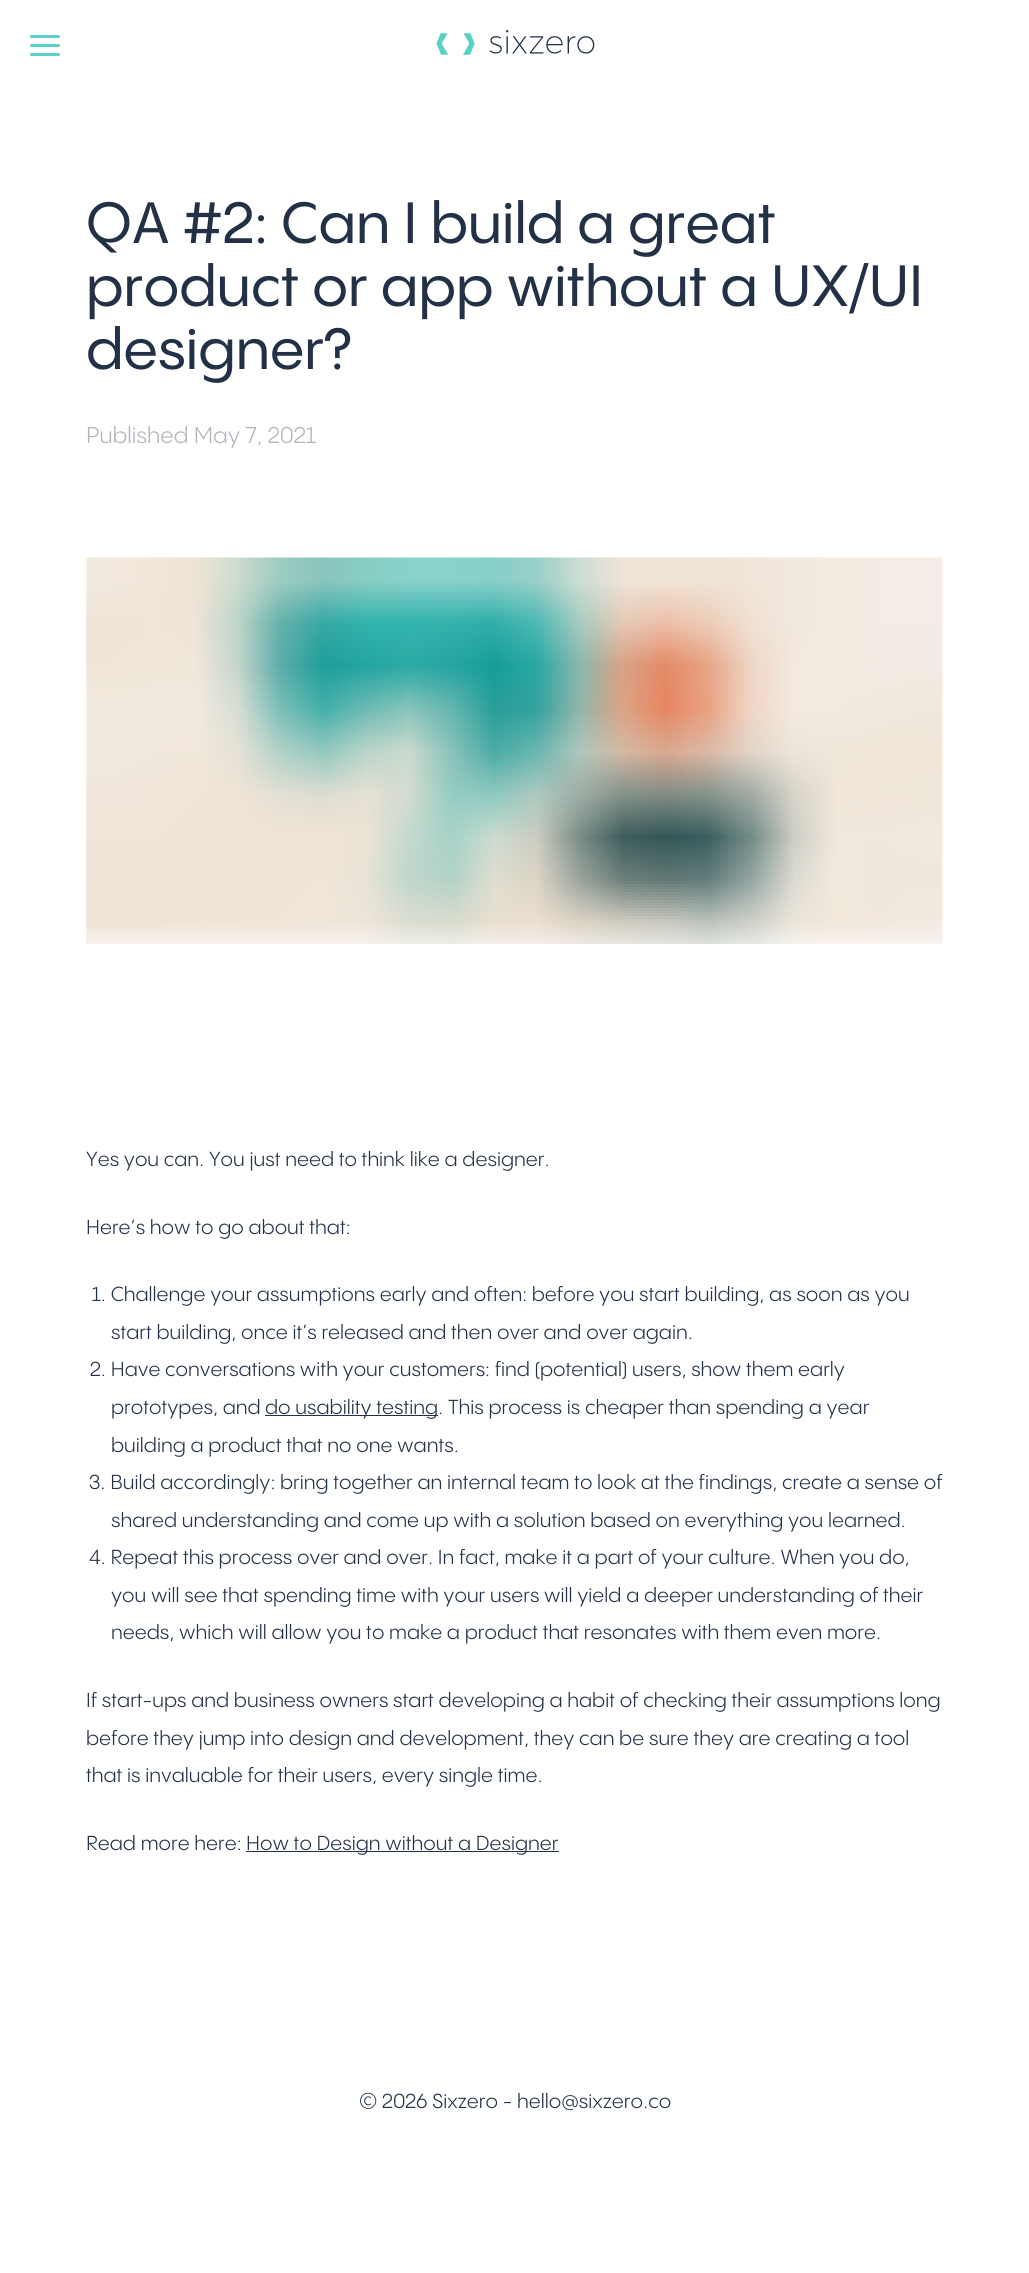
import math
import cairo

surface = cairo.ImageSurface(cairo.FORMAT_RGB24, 1029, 2273)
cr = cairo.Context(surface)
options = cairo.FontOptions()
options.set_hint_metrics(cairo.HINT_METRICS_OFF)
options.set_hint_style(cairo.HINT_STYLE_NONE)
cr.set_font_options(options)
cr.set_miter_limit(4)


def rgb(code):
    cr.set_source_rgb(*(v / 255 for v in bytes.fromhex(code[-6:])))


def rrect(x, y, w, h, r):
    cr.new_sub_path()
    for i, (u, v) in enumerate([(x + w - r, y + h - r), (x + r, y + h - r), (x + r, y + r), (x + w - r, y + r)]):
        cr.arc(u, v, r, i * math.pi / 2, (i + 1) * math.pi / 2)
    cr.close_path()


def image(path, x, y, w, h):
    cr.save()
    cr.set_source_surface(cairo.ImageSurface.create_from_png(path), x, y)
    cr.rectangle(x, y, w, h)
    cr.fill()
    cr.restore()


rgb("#ffffff")
cr.paint()
rgb("#5dcfc9")
rrect(30, 35, 30, 3, 1.5)
cr.fill()
rrect(30, 44, 30, 3, 1.5)
cr.fill()
rrect(30, 53, 30, 3, 1.5)
cr.fill()
image("img/1.png", 436, 30, 159, 25)
image("img/2.png", 86, 557, 857, 387)
rgb("#233147")
cr.rectangle(265, 1415, 173, 1)
cr.fill()
cr.rectangle(246, 1851, 313, 1)
cr.fill()
cr.select_font_face("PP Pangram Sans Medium")
cr.set_font_size(57.25)
for x, y, s in [
    (86, 243, "QA #2: Can I build a great"),
    (86, 306, "product or app without a UX/UI"),
    (86, 369, "designer?"),
]:
    cr.move_to(x, y)
    cr.show_text(s)
cr.select_font_face("PP Pangram Sans")
cr.set_font_size(22.5)
rgb("#b0b6bc")
cr.move_to(86, 443)
cr.show_text("Published May 7, 2021")
cr.set_font_size(20)
rgb("#233147")
for x, y, s in [
    (86, 1166, "Yes you can. You just need to think like a designer."),
    (86, 1234, "Here’s how to go about that:"),
    (92, 1301, "1. Challenge your assumptions early and often: before you start building, as soon as you"),
    (111, 1339, "start building, once it’s released and then over and over again."),
    (90, 1376, "2. Have conversations with your customers: find (potential) users, show them early"),
    (111, 1414, "prototypes, and"),
    (265, 1414, "do usability testing"),
    (438, 1414, ". This process is cheaper than spending a year"),
    (111, 1452, "building a product that no one wants."),
    (89, 1489, "3. Build accordingly: bring together an internal team to look at the findings, create a sense of"),
    (111, 1527, "shared understanding and come up with a solution based on everything you learned."),
    (89, 1564, "4. Repeat this process over and over. In fact, make it a part of your culture. When you do,"),
    (111, 1602, "you will see that spending time with your users will yield a deeper understanding of their"),
    (111, 1639, "needs, which will allow you to make a product that resonates with them even more."),
    (86, 1707, "If start-ups and business owners start developing a habit of checking their assumptions long"),
    (86, 1745, "before they jump into design and development, they can be sure they are creating a tool"),
    (86, 1782, "that is invaluable for their users, every single time."),
    (86, 1850, "Read more here:"),
    (246, 1850, "How to Design without a Designer"),
    (359, 2108, "© 2026 Sixzero - hello@sixzero.co"),
]:
    cr.move_to(x, y)
    cr.show_text(s)
surface.write_to_png("page.png")
